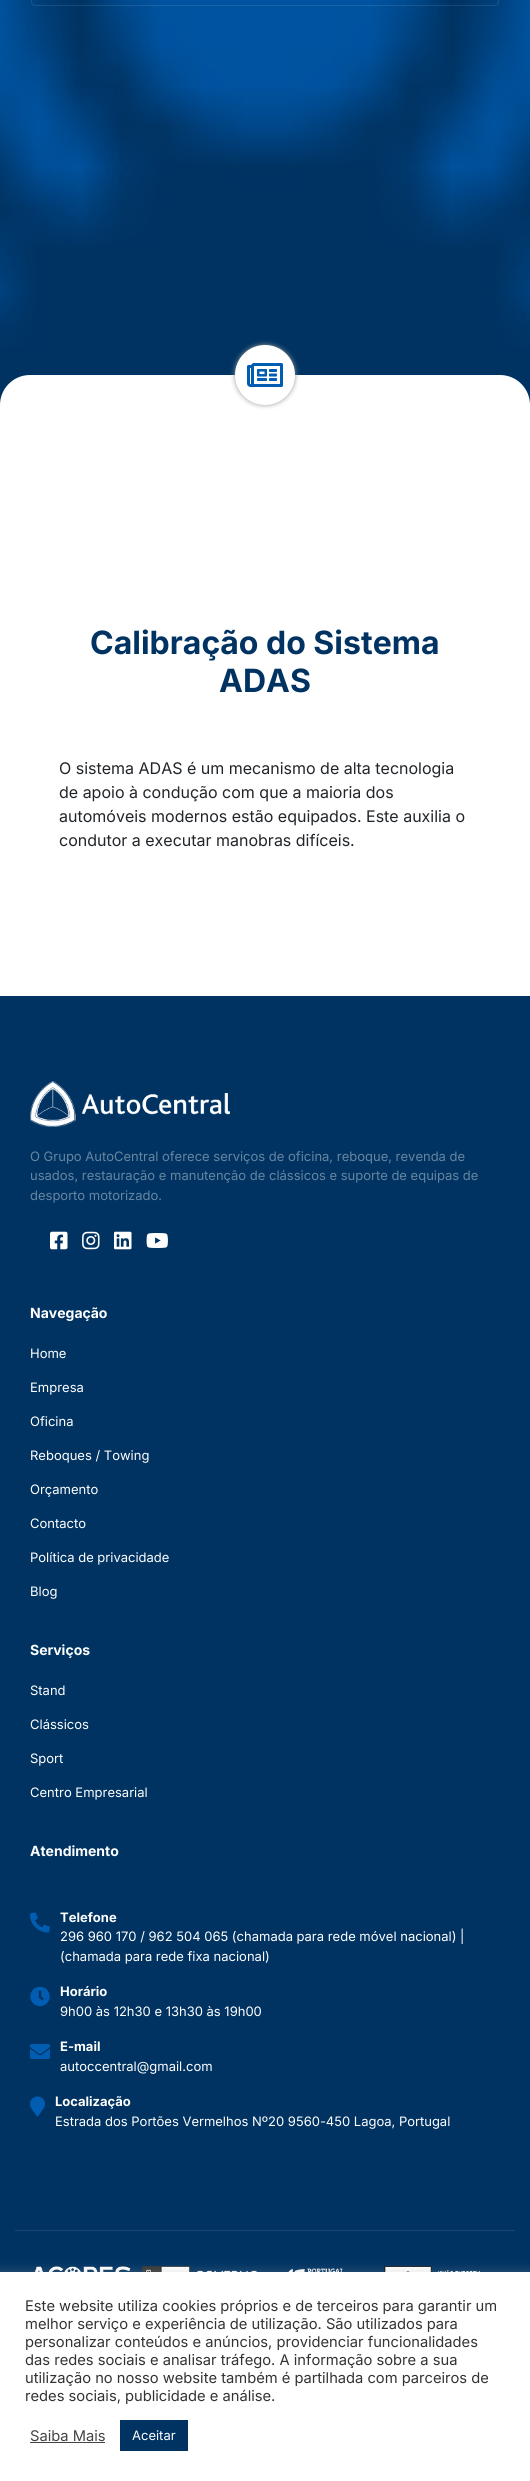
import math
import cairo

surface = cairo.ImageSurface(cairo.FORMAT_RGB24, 530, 2481)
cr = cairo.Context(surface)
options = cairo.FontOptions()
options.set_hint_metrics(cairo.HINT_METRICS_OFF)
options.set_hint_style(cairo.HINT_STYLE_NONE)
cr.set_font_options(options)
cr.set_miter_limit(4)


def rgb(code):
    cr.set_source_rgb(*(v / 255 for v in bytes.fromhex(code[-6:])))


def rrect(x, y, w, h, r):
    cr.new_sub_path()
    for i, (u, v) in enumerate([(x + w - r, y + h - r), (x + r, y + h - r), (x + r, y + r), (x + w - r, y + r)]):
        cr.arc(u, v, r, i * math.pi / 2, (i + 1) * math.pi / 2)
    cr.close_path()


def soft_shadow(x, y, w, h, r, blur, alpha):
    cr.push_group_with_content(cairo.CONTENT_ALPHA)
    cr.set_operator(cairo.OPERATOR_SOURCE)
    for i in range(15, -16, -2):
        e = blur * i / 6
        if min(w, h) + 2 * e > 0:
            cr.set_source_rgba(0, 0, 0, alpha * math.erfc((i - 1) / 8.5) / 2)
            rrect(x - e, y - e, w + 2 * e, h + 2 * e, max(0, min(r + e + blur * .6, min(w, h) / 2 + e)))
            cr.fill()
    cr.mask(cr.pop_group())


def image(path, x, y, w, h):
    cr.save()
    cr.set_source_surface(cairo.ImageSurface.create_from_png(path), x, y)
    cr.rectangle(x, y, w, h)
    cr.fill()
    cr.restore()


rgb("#ffffff")
cr.paint()
rgb("#003362")
cr.rectangle(0, 0, 530, 405)
cr.fill()
image("img/1.png", 0, 0, 530, 347)
rrect(31.5, -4.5, 467, 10, 3.5)
cr.set_source_rgba(1, 1, 1, 0.1)
cr.set_line_width(1)
cr.stroke()
rgb("#ffffff")
rrect(0, 375, 530, 621, 30)
cr.fill()
rgb("#999999")
soft_shadow(235, 345, 60, 60, 30, 2.5, 1)
rgb("#ffffff")
cr.arc(265, 375, 30, 0, 2 * math.pi)
cr.fill()
image("img/2.png", 247, 363, 36, 24)
rgb("#003362")
cr.rectangle(0, 996, 530, 1276)
cr.fill()
image("img/3.png", 30, 1081, 200, 46)
image("img/4.png", 50, 1231, 18, 19)
image("img/5.png", 82, 1231, 18, 19)
image("img/6.png", 114, 1231, 18, 19)
image("img/7.png", 146, 1233, 22, 15)
image("img/8.png", 30, 1912, 20, 21)
image("img/9.png", 30, 1986, 20, 21)
image("img/10.png", 30, 2044, 20, 15)
image("img/11.png", 30, 2096, 15, 21)
rgb("#1a4772")
cr.rectangle(15, 2230, 500, 1)
cr.fill()
image("img/12.png", 34, 2266, 446, 6)
rgb("#acabab")
soft_shadow(0, 2271, 530, 209, 0, 5, 0.3)
for x, y, w, h, color in [
    (0, 2272, 530, 209, "#ffffff"),
    (30, 2442, 75, 1, "#444444"),
    (120, 2420, 68, 31, "#003362"),
]:
    rgb(color)
    cr.rectangle(x, y, w, h)
    cr.fill()
cr.select_font_face("Inter", cairo.FONT_SLANT_NORMAL, cairo.FONT_WEIGHT_BOLD)
cr.set_font_size(32)
cr.move_to(90, 654)
cr.show_text("Calibração do Sistema")
cr.move_to(219, 692)
cr.show_text("ADAS")
cr.select_font_face("Inter")
cr.set_font_size(16)
rgb("#212529")
for x, y, s in [
    (59, 774, "O sistema ADAS é um mecanismo de alta tecnologia"),
    (59, 798, "de apoio à condução com que a maioria dos"),
    (59, 822, "automóveis modernos estão equipados. Este auxilia o"),
    (59, 846, "condutor a executar manobras difíceis."),
]:
    cr.move_to(x, y)
    cr.show_text(s)
cr.set_font_size(13)
rgb("#6685a1")
for x, y, s in [
    (30, 1161, "O Grupo AutoCentral oferece serviços de oficina, reboque, revenda de"),
    (30, 1180, "usados, restauração e manutenção de clássicos e suporte de equipas de"),
    (30, 1200, "desporto motorizado."),
]:
    cr.move_to(x, y)
    cr.show_text(s)
cr.select_font_face("Inter", cairo.FONT_SLANT_NORMAL, cairo.FONT_WEIGHT_BOLD)
cr.set_font_size(14)
rgb("#ffffff")
cr.move_to(30, 1318)
cr.show_text("Navegação")
cr.select_font_face("Inter")
cr.set_font_size(13)
for x, y, s in [
    (30, 1358, "Home"),
    (30, 1392, "Empresa"),
    (30, 1426, "Oficina"),
    (30, 1460, "Reboques / Towing"),
    (30, 1494, "Orçamento"),
    (30, 1528, "Contacto"),
    (30, 1562, "Política de privacidade"),
    (30, 1596, "Blog"),
]:
    cr.move_to(x, y)
    cr.show_text(s)
cr.select_font_face("Inter", cairo.FONT_SLANT_NORMAL, cairo.FONT_WEIGHT_BOLD)
cr.set_font_size(14)
cr.move_to(30, 1655)
cr.show_text("Serviços")
cr.select_font_face("Inter")
cr.set_font_size(13)
for x, y, s in [
    (30, 1695, "Stand"),
    (30, 1729, "Clássicos"),
    (30, 1763, "Sport"),
    (30, 1797, "Centro Empresarial"),
]:
    cr.move_to(x, y)
    cr.show_text(s)
cr.select_font_face("Inter", cairo.FONT_SLANT_NORMAL, cairo.FONT_WEIGHT_BOLD)
cr.set_font_size(14)
cr.move_to(30, 1856)
cr.show_text("Atendimento")
cr.set_font_size(13)
cr.move_to(60, 1922)
cr.show_text("Telefone")
cr.select_font_face("Inter")
cr.move_to(60, 1941)
cr.show_text("296 960 170 / 962 504 065 (chamada para rede móvel nacional) |")
cr.move_to(60, 1961)
cr.show_text("(chamada para rede fixa nacional)")
cr.select_font_face("Inter", cairo.FONT_SLANT_NORMAL, cairo.FONT_WEIGHT_BOLD)
cr.move_to(60, 1996)
cr.show_text("Horário")
cr.select_font_face("Inter")
cr.move_to(60, 2016)
cr.show_text("9h00 às 12h30 e 13h30 às 19h00")
cr.select_font_face("Inter", cairo.FONT_SLANT_NORMAL, cairo.FONT_WEIGHT_BOLD)
cr.move_to(60, 2051)
cr.show_text("E-mail")
cr.select_font_face("Inter")
cr.move_to(60, 2071)
cr.show_text("autoccentral@gmail.com")
cr.select_font_face("Inter", cairo.FONT_SLANT_NORMAL, cairo.FONT_WEIGHT_BOLD)
cr.move_to(55, 2106)
cr.show_text("Localização")
cr.select_font_face("Inter")
cr.move_to(55, 2126)
cr.show_text("Estrada dos Portões Vermelhos Nº20 9560-450 Lagoa, Portugal")
cr.set_font_size(14.7)
rgb("#333333")
for x, y, s in [
    (25, 2311, "Este website utiliza cookies próprios e de terceiros para garantir um"),
    (25, 2329, "melhor serviço e experiência de utilização. São utilizados para"),
    (25, 2347, "personalizar conteúdos e anúncios, providenciar funcionalidades"),
    (25, 2365, "das redes sociais e analisar tráfego. A informação sobre a sua"),
    (25, 2383, "utilização no nosso website também é partilhada com parceiros de"),
    (25, 2401, "redes sociais, publicidade e análise."),
]:
    cr.move_to(x, y)
    cr.show_text(s)
rgb("#444444")
cr.move_to(30, 2441)
cr.show_text("Saiba Mais")
cr.set_font_size(13)
rgb("#ffffff")
cr.move_to(132, 2440)
cr.show_text("Aceitar")
surface.write_to_png("page.png")
